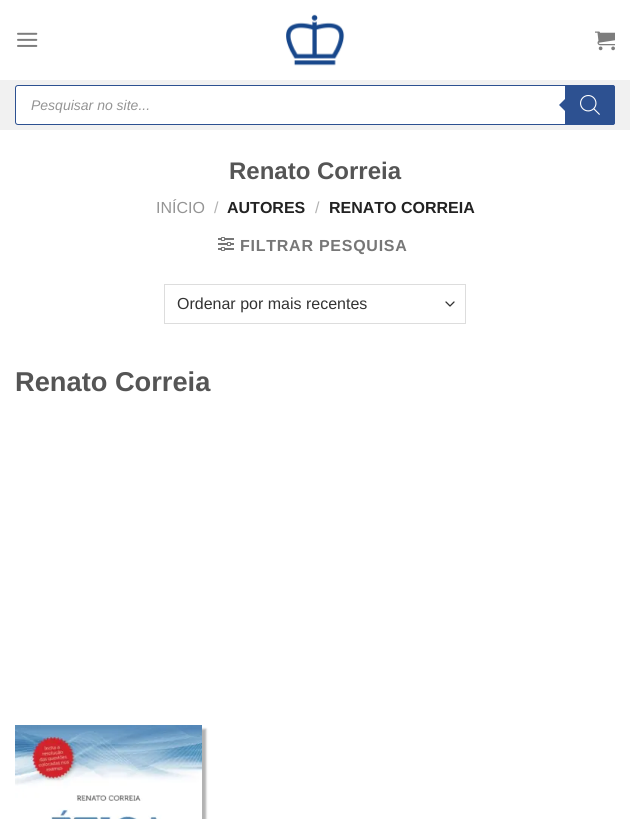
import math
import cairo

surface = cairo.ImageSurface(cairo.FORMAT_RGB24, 630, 819)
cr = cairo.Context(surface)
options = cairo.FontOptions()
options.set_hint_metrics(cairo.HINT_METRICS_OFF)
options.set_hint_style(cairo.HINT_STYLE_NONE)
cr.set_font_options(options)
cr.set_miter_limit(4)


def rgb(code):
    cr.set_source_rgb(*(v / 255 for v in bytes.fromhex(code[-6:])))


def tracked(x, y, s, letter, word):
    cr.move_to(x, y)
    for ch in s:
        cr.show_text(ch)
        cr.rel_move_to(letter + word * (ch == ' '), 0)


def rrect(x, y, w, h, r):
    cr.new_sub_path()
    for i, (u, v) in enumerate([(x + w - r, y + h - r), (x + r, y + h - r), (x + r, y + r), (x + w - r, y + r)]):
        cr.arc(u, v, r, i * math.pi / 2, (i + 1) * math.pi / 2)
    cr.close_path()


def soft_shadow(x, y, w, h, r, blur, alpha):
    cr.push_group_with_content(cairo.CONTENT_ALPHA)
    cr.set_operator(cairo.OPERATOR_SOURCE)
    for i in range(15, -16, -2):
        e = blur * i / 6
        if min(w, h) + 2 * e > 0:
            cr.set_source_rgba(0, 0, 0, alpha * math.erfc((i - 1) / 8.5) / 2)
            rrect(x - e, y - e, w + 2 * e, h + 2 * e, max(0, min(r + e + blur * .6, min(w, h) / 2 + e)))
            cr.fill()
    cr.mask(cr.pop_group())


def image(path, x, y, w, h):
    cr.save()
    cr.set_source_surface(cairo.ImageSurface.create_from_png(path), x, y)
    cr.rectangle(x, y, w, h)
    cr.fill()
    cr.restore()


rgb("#ffffff")
cr.paint()
image("img/1.png", 17, 32, 21, 15)
image("img/2.png", 286, 14, 59, 52)
image("img/3.png", 595, 31, 20, 20)
rgb("#f1f1f1")
cr.rectangle(0, 80, 630, 50)
cr.fill()
rgb("#ffffff")
rrect(15.5, 85.5, 599, 39, 2.5)
cr.fill_preserve()
rgb("#2d5191")
cr.set_line_width(1)
cr.stroke()
cr.new_path()
cr.move_to(565, 85)
cr.line_to(613, 85)
cr.curve_to(614, 85, 615, 86, 615, 87)
cr.line_to(615, 123)
cr.curve_to(615, 124, 614, 125, 613, 125)
cr.line_to(565, 125)
cr.close_path()
cr.fill()
cr.new_path()
cr.move_to(567, 97)
cr.line_to(567, 113)
cr.line_to(559, 105)
cr.close_path()
cr.fill()
image("img/4.png", 580, 95, 20, 20)
image("img/5.png", 218, 237, 16, 14)
cr.new_path()
cr.move_to(446, 302)
cr.line_to(450, 306)
cr.line_to(454, 302)
rgb("#333333")
cr.set_line_width(1.3)
cr.set_line_cap(cairo.LINE_CAP_ROUND)
cr.set_line_join(cairo.LINE_JOIN_ROUND)
cr.stroke()
cr.rectangle(164.5, 284.5, 301, 39)
rgb("#dddddd")
cr.set_line_width(1)
cr.set_line_cap(cairo.LINE_CAP_BUTT)
cr.set_line_join(cairo.LINE_JOIN_MITER)
cr.stroke()
rgb("#b2b2b2")
soft_shadow(19, 729, 187, 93, 0, 1, 1)
image("img/6.png", 15, 725, 187, 94)
cr.select_font_face("Liberation Sans", cairo.FONT_SLANT_ITALIC)
cr.set_font_size(14)
rgb("#949494")
cr.move_to(31, 110)
cr.show_text("Pesquisar no site...")
cr.select_font_face("Liberation Sans", cairo.FONT_SLANT_NORMAL, cairo.FONT_WEIGHT_BOLD)
cr.set_font_size(24)
rgb("#555555")
cr.move_to(229, 179)
cr.show_text("Renato Correia")
cr.select_font_face("Liberation Sans")
cr.set_font_size(16)
rgb("#949494")
cr.move_to(156, 213)
cr.show_text("INÍCIO")
rgb("#b2b2b2")
cr.move_to(214, 213)
cr.show_text("/")
cr.select_font_face("Liberation Sans", cairo.FONT_SLANT_NORMAL, cairo.FONT_WEIGHT_BOLD)
rgb("#222222")
cr.move_to(227, 213)
cr.show_text("AUTORES")
cr.select_font_face("Liberation Sans")
rgb("#b2b2b2")
cr.move_to(315, 213)
cr.show_text("/")
cr.select_font_face("Liberation Sans", cairo.FONT_SLANT_NORMAL, cairo.FONT_WEIGHT_BOLD)
rgb("#222222")
cr.move_to(329, 213)
cr.show_text("RENATO CORREIA")
rgb("#777777")
tracked(240, 251, "FILTRAR PESQUISA", 0.75, 0)
cr.select_font_face("Liberation Sans")
rgb("#333333")
cr.move_to(177, 309)
cr.show_text("Ordenar por mais recentes")
cr.select_font_face("Liberation Sans", cairo.FONT_SLANT_NORMAL, cairo.FONT_WEIGHT_BOLD)
cr.set_font_size(27.25)
rgb("#555555")
cr.move_to(15, 391)
cr.show_text("Renato Correia")
surface.write_to_png("page.png")
